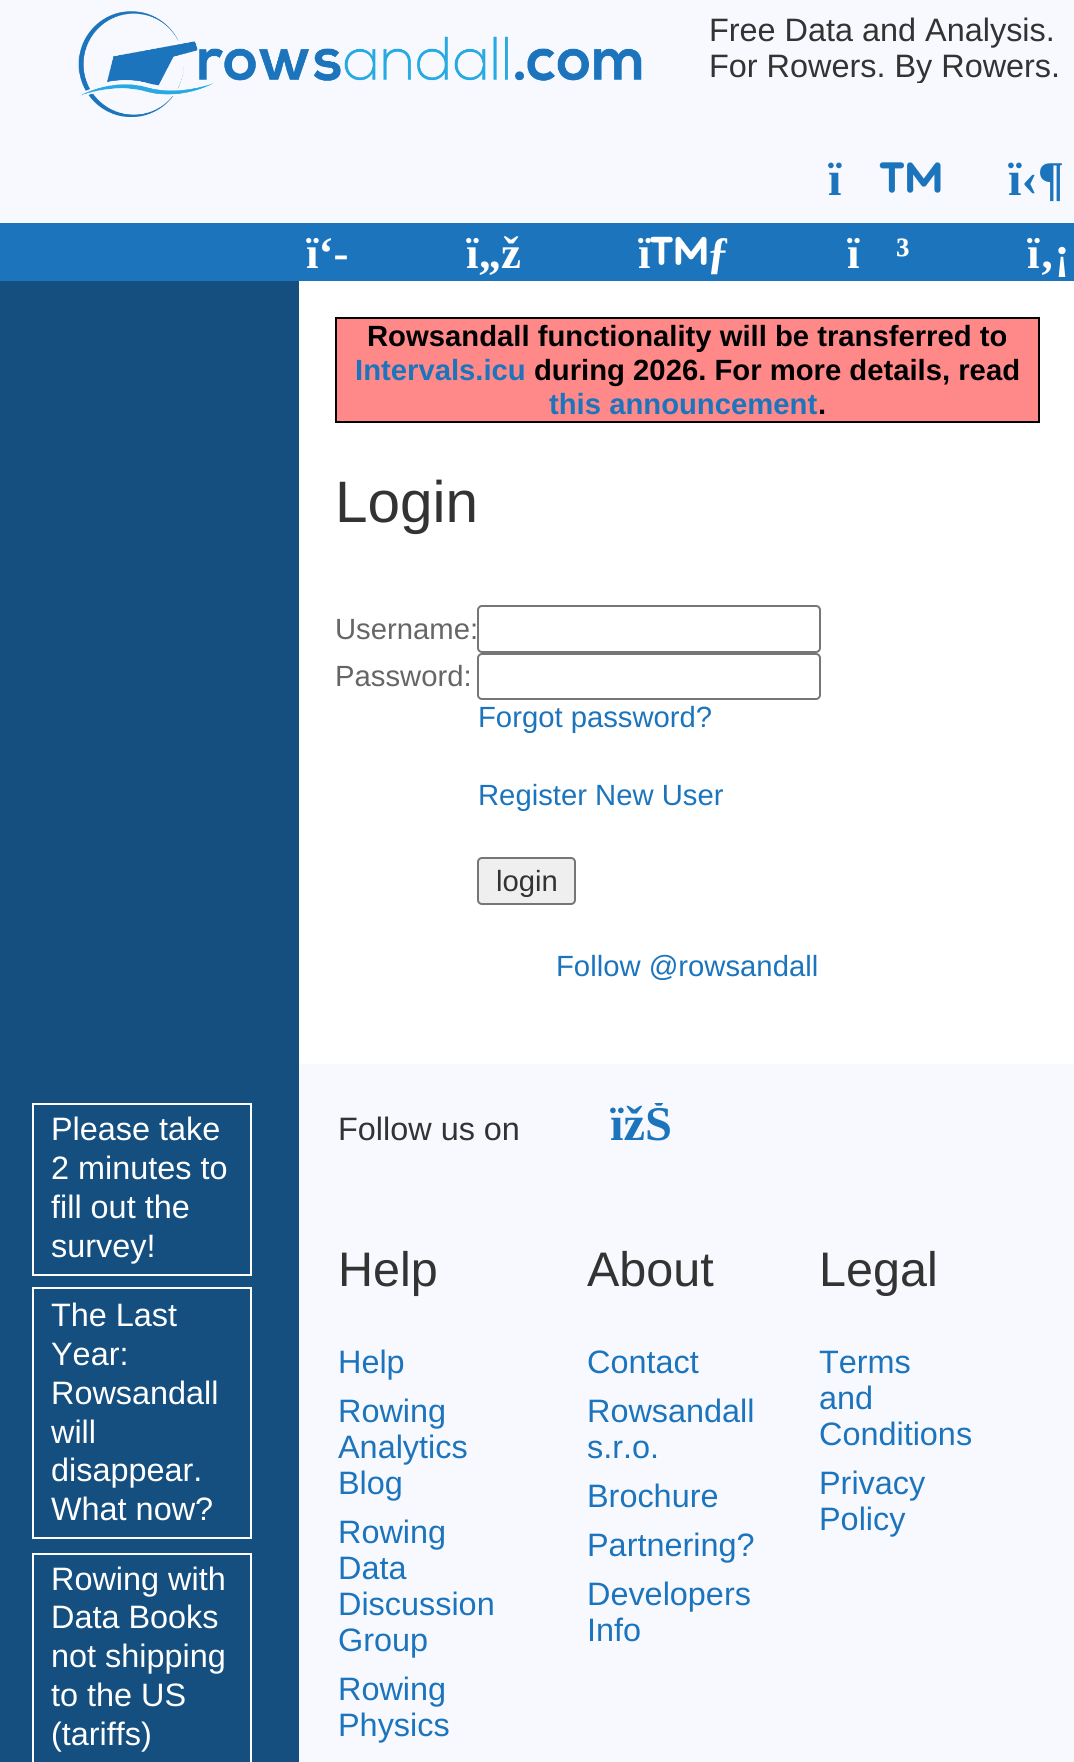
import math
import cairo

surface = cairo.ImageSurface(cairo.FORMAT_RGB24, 1074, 1762)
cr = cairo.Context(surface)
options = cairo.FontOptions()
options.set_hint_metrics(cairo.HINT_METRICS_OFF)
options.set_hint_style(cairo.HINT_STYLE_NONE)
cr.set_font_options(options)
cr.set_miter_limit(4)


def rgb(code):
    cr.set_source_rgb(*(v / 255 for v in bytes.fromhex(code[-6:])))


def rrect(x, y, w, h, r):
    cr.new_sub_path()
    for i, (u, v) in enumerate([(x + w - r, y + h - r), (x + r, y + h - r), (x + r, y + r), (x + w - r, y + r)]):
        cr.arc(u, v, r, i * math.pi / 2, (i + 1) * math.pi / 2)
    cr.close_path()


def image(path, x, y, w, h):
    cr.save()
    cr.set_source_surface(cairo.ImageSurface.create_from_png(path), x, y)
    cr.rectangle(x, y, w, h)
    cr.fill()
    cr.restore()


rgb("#ffffff")
cr.paint()
rgb("#f8f8ff")
cr.rectangle(0, 0, 1074, 223)
cr.fill()
image("img/1.png", 78, 11, 564, 106)
image("img/2.png", 879, 162, 62, 31)
rgb("#1c75bc")
cr.rectangle(0, 223, 1074, 58)
cr.fill()
image("img/3.png", 650, 236, 57, 29)
rgb("#144f80")
cr.rectangle(0, 281, 299, 1481)
cr.fill()
rgb("#ff8888")
cr.rectangle(336, 318, 703, 104)
cr.fill_preserve()
rgb("#000000")
cr.stroke()
rrect(478, 606, 342, 46, 4)
rgb("#767676")
cr.stroke()
rrect(478, 654, 342, 45, 4)
cr.stroke()
rgb("#efefef")
rrect(478, 858, 97, 46, 4)
cr.fill_preserve()
rgb("#767676")
cr.stroke()
cr.rectangle(33, 1104, 218, 171)
rgb("#ffffff")
cr.stroke()
cr.rectangle(33, 1288, 218, 250)
cr.stroke()
cr.rectangle(33, 1554, 218, 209)
cr.stroke()
rgb("#f8f8ff")
cr.rectangle(299, 1064, 775, 698)
cr.fill()
cr.select_font_face("Liberation Sans")
cr.set_font_size(32.4)
rgb("#333333")
cr.move_to(709, 41)
cr.show_text("Free Data and Analysis.")
cr.save()
cr.rectangle(709, 11, 355, 72)
cr.clip()
cr.move_to(709, 77)
cr.show_text("For Rowers. By Rowers.")
cr.restore()
cr.select_font_face("Liberation Serif", cairo.FONT_SLANT_NORMAL, cairo.FONT_WEIGHT_BOLD)
cr.set_font_size(48.5)
rgb("#1c75bc")
cr.move_to(828, 195)
cr.show_text("ï")
cr.move_to(1008, 195)
cr.show_text("ï‹¶")
cr.set_font_size(45)
rgb("#ffffff")
for x, y, s in [
    (306, 268, "ï‘-"),
    (466, 268, "ï„ž"),
    (638, 268, "ï"),
    (707, 268, "ƒ"),
    (847, 268, "ï"),
    (896, 268, "³"),
    (1027, 268, "ï‚¡"),
]:
    cr.move_to(x, y)
    cr.show_text(s)
cr.select_font_face("Liberation Sans", cairo.FONT_SLANT_NORMAL, cairo.FONT_WEIGHT_BOLD)
cr.set_font_size(29.25)
rgb("#000000")
cr.move_to(367, 346)
cr.show_text("Rowsandall functionality will be transferred to")
rgb("#1c75bc")
cr.move_to(355, 380)
cr.show_text("Intervals.icu")
rgb("#000000")
cr.move_to(534, 380)
cr.show_text("during 2026. For more details, read")
rgb("#1c75bc")
cr.move_to(549, 414)
cr.show_text("this announcement")
rgb("#000000")
cr.move_to(818, 414)
cr.show_text(".")
cr.select_font_face("Liberation Sans")
cr.set_font_size(58.5)
rgb("#333333")
cr.move_to(335, 522)
cr.show_text("Login")
cr.set_font_size(29.25)
rgb("#666666")
cr.move_to(335, 639)
cr.show_text("Username:")
cr.move_to(335, 686)
cr.show_text("Password:")
rgb("#1c75bc")
cr.move_to(478, 727)
cr.show_text("Forgot password?")
cr.move_to(478, 805)
cr.show_text("Register New User")
rgb("#333333")
cr.move_to(496, 891)
cr.show_text("login")
rgb("#1c75bc")
cr.move_to(556, 976)
cr.show_text("Follow @rowsandall")
cr.set_font_size(32.4)
rgb("#ffffff")
for x, y, s in [
    (51, 1140, "Please take"),
    (51, 1179, "2 minutes to"),
    (51, 1218, "fill out the"),
    (51, 1257, "survey!"),
    (51, 1326, "The Last"),
    (51, 1365, "Year:"),
    (51, 1404, "Rowsandall"),
    (51, 1443, "will"),
    (51, 1481, "disappear."),
    (51, 1520, "What now?"),
    (51, 1590, "Rowing with"),
    (51, 1628, "Data Books"),
    (51, 1667, "not shipping"),
    (51, 1706, "to the US"),
    (51, 1745, "(tariffs)"),
]:
    cr.move_to(x, y)
    cr.show_text(s)
rgb("#333333")
cr.move_to(338, 1140)
cr.show_text("Follow us on")
cr.save()
cr.rectangle(338, 1103, 699, 47)
cr.clip()
cr.select_font_face("Liberation Serif", cairo.FONT_SLANT_NORMAL, cairo.FONT_WEIGHT_BOLD)
cr.set_font_size(48.5)
rgb("#1c75bc")
cr.move_to(610, 1140)
cr.show_text("ïžŠ")
cr.restore()
cr.set_font_size(48.5)
cr.move_to(338, 1286)
cr.show_text("Help")
cr.set_font_size(32.4)
rgb("#1c75bc")
for x, y, s in [
    (338, 1373, "Help"),
    (338, 1422, "Rowing"),
    (338, 1458, "Analytics"),
    (338, 1494, "Blog"),
    (338, 1543, "Rowing"),
    (338, 1579, "Data"),
    (338, 1615, "Discussion"),
    (338, 1651, "Group"),
    (338, 1700, "Rowing"),
    (338, 1736, "Physics"),
]:
    cr.move_to(x, y)
    cr.show_text(s)
cr.set_font_size(48.5)
rgb("#333333")
cr.move_to(587, 1286)
cr.show_text("About")
cr.set_font_size(32.4)
rgb("#1c75bc")
for x, y, s in [
    (587, 1373, "Contact"),
    (587, 1422, "Rowsandall"),
    (587, 1458, "s.r.o."),
    (587, 1507, "Brochure"),
    (587, 1556, "Partnering?"),
    (587, 1605, "Developers"),
    (587, 1641, "Info"),
]:
    cr.move_to(x, y)
    cr.show_text(s)
cr.set_font_size(48.5)
rgb("#333333")
cr.move_to(819, 1286)
cr.show_text("Legal")
cr.set_font_size(32.4)
rgb("#1c75bc")
for x, y, s in [
    (819, 1373, "Terms"),
    (819, 1409, "and"),
    (819, 1445, "Conditions"),
    (819, 1494, "Privacy"),
    (819, 1530, "Policy"),
]:
    cr.move_to(x, y)
    cr.show_text(s)
surface.write_to_png("page.png")
